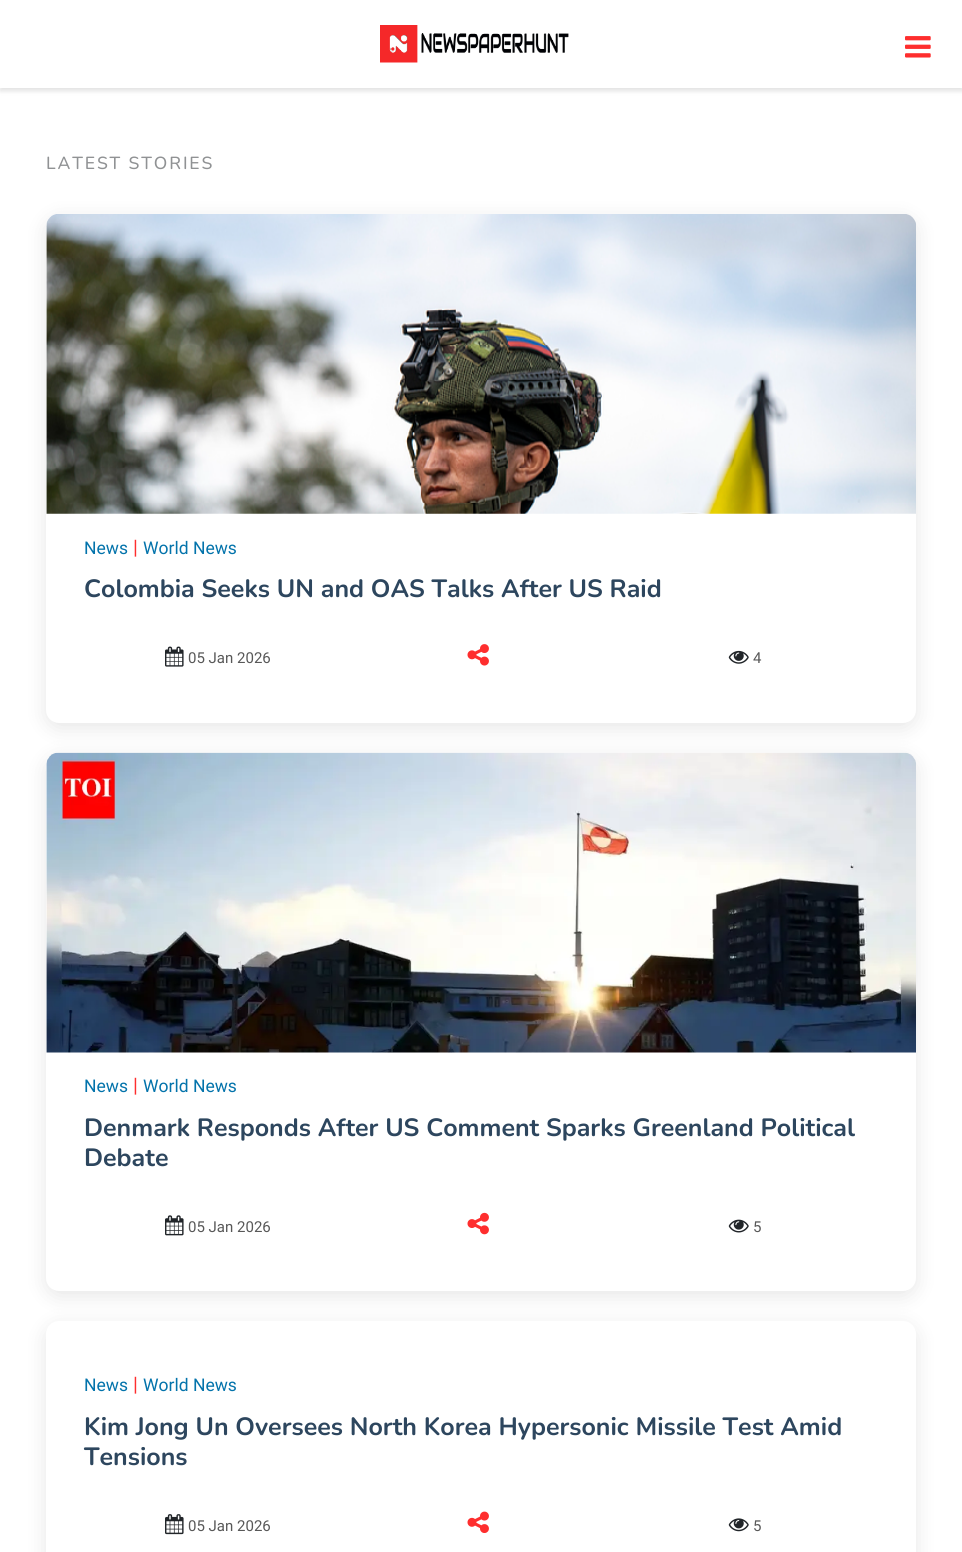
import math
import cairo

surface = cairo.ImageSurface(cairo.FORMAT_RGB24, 962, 1552)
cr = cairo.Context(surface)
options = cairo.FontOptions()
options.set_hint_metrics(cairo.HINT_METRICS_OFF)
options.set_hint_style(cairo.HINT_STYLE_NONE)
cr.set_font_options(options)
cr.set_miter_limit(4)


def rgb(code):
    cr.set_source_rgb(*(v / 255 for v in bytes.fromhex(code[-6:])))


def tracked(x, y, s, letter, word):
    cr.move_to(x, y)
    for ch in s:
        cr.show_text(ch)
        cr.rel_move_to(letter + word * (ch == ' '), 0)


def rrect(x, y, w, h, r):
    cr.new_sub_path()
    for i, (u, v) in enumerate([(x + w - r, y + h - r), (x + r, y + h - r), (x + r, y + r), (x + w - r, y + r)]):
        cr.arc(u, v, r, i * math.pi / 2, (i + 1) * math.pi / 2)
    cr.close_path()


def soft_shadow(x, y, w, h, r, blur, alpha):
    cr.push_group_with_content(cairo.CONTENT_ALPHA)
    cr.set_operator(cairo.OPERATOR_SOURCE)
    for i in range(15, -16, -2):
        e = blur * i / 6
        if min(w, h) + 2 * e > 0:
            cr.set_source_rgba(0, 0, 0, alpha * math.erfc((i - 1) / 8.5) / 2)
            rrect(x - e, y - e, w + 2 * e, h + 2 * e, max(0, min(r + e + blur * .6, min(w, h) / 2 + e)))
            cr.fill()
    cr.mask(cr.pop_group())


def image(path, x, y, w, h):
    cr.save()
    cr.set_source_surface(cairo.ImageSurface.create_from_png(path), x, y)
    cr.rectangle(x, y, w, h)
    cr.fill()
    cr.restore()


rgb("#ffffff")
cr.paint()
cr.save()
cr.set_fill_rule(cairo.FILL_RULE_EVEN_ODD)
cr.new_path()
cr.move_to(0, 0)
cr.line_to(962, 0)
cr.line_to(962, 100)
cr.line_to(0, 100)
cr.close_path()
cr.move_to(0, 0)
cr.line_to(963, 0)
cr.line_to(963, 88)
cr.line_to(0, 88)
cr.close_path()
cr.clip()
rgb("#000000")
soft_shadow(0, 4, 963, 87, 0, 2.5, 0.12)
cr.restore()
image("img/1.png", 380, 25, 189, 38)
image("img/2.png", 905, 36, 26, 22)
rgb("#000000")
soft_shadow(46, 219, 870, 509, 13, 10, 0.1)
rgb("#ffffff")
rrect(46, 214, 870, 509, 13)
cr.fill()
image("img/3.png", 46, 214, 870, 300)
image("img/4.png", 165, 646, 19, 21)
image("img/5.png", 467, 644, 22, 22)
image("img/6.png", 728, 650, 21, 14)
rgb("#000000")
soft_shadow(46, 758, 870, 538, 13, 10, 0.1)
rgb("#ffffff")
rrect(46, 753, 870, 538, 13)
cr.fill()
image("img/7.png", 46, 752, 870, 301)
image("img/8.png", 165, 1215, 19, 21)
image("img/9.png", 467, 1212, 22, 23)
image("img/10.png", 728, 1219, 21, 14)
rgb("#000000")
soft_shadow(46, 1326, 870, 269, 13, 10, 0.1)
rgb("#ffffff")
rrect(46, 1321, 870, 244, 13)
cr.fill()
image("img/11.png", 165, 1514, 19, 21)
image("img/12.png", 467, 1511, 22, 22)
image("img/13.png", 728, 1518, 21, 14)
cr.select_font_face("Nunito Medium")
cr.set_font_size(17.5)
rgb("#909294")
tracked(46, 169, "LATEST STORIES", 1.9, 0)
cr.select_font_face("Roboto")
rgb("#0373ab")
cr.move_to(84, 554)
cr.show_text("News")
cr.set_font_size(20)
rgb("#fe2e2e")
cr.move_to(133, 554)
cr.show_text("|")
cr.set_font_size(17.5)
rgb("#0373ab")
cr.move_to(143, 554)
cr.show_text("World News")
cr.select_font_face("Nunito", cairo.FONT_SLANT_NORMAL, cairo.FONT_WEIGHT_BOLD)
cr.set_font_size(25)
rgb("#2d465e")
cr.move_to(84, 597)
cr.show_text("Colombia Seeks UN and OAS Talks After US Raid")
cr.select_font_face("Roboto")
cr.set_font_size(15)
rgb("#585858")
cr.move_to(188, 663)
cr.show_text("05 Jan 2026")
cr.move_to(753, 663)
cr.show_text("4")
cr.set_font_size(17.5)
rgb("#0373ab")
cr.move_to(84, 1092)
cr.show_text("News")
cr.set_font_size(20)
rgb("#fe2e2e")
cr.move_to(133, 1092)
cr.show_text("|")
cr.set_font_size(17.5)
rgb("#0373ab")
cr.move_to(143, 1092)
cr.show_text("World News")
cr.select_font_face("Nunito", cairo.FONT_SLANT_NORMAL, cairo.FONT_WEIGHT_BOLD)
cr.set_font_size(25)
rgb("#2d465e")
cr.move_to(84, 1136)
cr.show_text("Denmark Responds After US Comment Sparks Greenland Political")
cr.move_to(84, 1166)
cr.show_text("Debate")
cr.select_font_face("Roboto")
cr.set_font_size(15)
rgb("#585858")
cr.move_to(188, 1232)
cr.show_text("05 Jan 2026")
cr.move_to(753, 1232)
cr.show_text("5")
cr.set_font_size(17.5)
rgb("#0373ab")
cr.move_to(84, 1391)
cr.show_text("News")
cr.set_font_size(20)
rgb("#fe2e2e")
cr.move_to(133, 1391)
cr.show_text("|")
cr.set_font_size(17.5)
rgb("#0373ab")
cr.move_to(143, 1391)
cr.show_text("World News")
cr.select_font_face("Nunito", cairo.FONT_SLANT_NORMAL, cairo.FONT_WEIGHT_BOLD)
cr.set_font_size(25)
rgb("#2d465e")
cr.move_to(84, 1435)
cr.show_text("Kim Jong Un Oversees North Korea Hypersonic Missile Test Amid")
cr.move_to(84, 1465)
cr.show_text("Tensions")
cr.select_font_face("Roboto")
cr.set_font_size(15)
rgb("#585858")
cr.move_to(188, 1531)
cr.show_text("05 Jan 2026")
cr.move_to(753, 1531)
cr.show_text("5")
surface.write_to_png("page.png")
